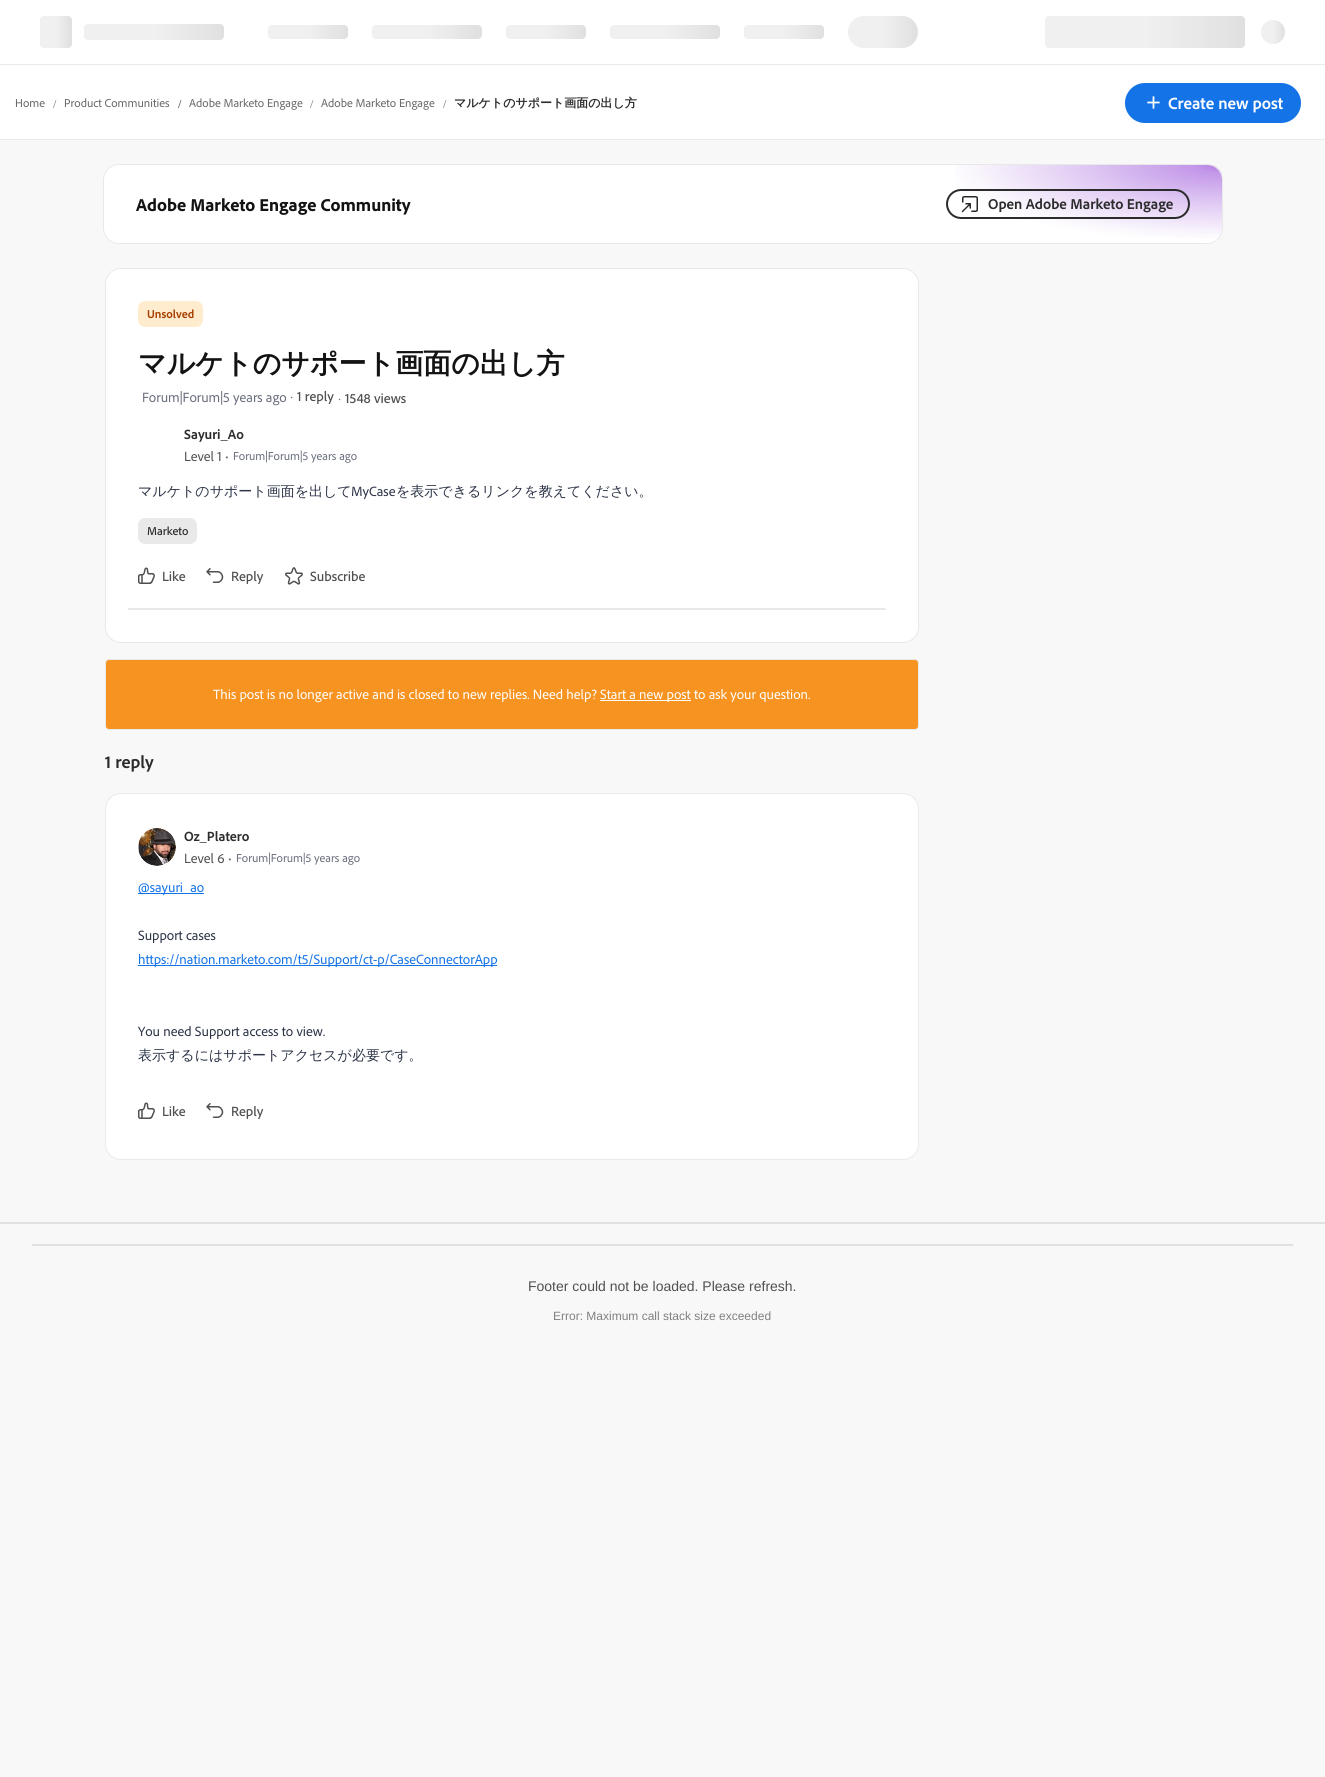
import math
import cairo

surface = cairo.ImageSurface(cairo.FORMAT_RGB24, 1325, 1777)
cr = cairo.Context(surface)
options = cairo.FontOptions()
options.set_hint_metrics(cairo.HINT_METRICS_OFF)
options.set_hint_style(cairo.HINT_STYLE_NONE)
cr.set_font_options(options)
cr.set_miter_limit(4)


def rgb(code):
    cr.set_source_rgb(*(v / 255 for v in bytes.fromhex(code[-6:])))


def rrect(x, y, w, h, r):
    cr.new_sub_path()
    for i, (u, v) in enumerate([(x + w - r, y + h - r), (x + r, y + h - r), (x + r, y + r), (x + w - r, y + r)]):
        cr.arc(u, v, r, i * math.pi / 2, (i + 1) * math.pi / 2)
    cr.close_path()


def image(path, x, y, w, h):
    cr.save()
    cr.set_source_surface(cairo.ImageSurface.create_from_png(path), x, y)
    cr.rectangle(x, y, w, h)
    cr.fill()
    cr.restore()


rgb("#f8f8f8")
cr.paint()
rgb("#ffffff")
cr.rectangle(0, 0, 1325, 64)
cr.fill()
rgb("#eaeaea")
cr.rectangle(0, 64, 1325, 1)
cr.fill()
gradient = cairo.LinearGradient(40, 32, 104, 32)
gradient.add_color_stop_rgba(0.25, 0.941, 0.941, 0.941, 1)
gradient.add_color_stop_rgba(0.5, 0.878, 0.878, 0.878, 1)
gradient.add_color_stop_rgba(0.75, 0.941, 0.941, 0.941, 1)
cr.set_source(gradient)
rrect(40, 16, 32, 32, 4)
cr.fill()
gradient = cairo.LinearGradient(84, 32, 364, 32)
gradient.add_color_stop_rgba(0.25, 0.941, 0.941, 0.941, 1)
gradient.add_color_stop_rgba(0.5, 0.878, 0.878, 0.878, 1)
gradient.add_color_stop_rgba(0.75, 0.941, 0.941, 0.941, 1)
cr.set_source(gradient)
rrect(84, 24, 140, 16, 4)
cr.fill()
gradient = cairo.LinearGradient(268, 32, 428, 32)
gradient.add_color_stop_rgba(0.25, 0.941, 0.941, 0.941, 1)
gradient.add_color_stop_rgba(0.5, 0.878, 0.878, 0.878, 1)
gradient.add_color_stop_rgba(0.75, 0.941, 0.941, 0.941, 1)
cr.set_source(gradient)
rrect(268, 25, 80, 14, 4)
cr.fill()
gradient = cairo.LinearGradient(372, 32, 592, 32)
gradient.add_color_stop_rgba(0.25, 0.941, 0.941, 0.941, 1)
gradient.add_color_stop_rgba(0.5, 0.878, 0.878, 0.878, 1)
gradient.add_color_stop_rgba(0.75, 0.941, 0.941, 0.941, 1)
cr.set_source(gradient)
rrect(372, 25, 110, 14, 4)
cr.fill()
gradient = cairo.LinearGradient(506, 32, 666, 32)
gradient.add_color_stop_rgba(0.25, 0.941, 0.941, 0.941, 1)
gradient.add_color_stop_rgba(0.5, 0.878, 0.878, 0.878, 1)
gradient.add_color_stop_rgba(0.75, 0.941, 0.941, 0.941, 1)
cr.set_source(gradient)
rrect(506, 25, 80, 14, 4)
cr.fill()
gradient = cairo.LinearGradient(610, 32, 830, 32)
gradient.add_color_stop_rgba(0.25, 0.941, 0.941, 0.941, 1)
gradient.add_color_stop_rgba(0.5, 0.878, 0.878, 0.878, 1)
gradient.add_color_stop_rgba(0.75, 0.941, 0.941, 0.941, 1)
cr.set_source(gradient)
rrect(610, 25, 110, 14, 4)
cr.fill()
gradient = cairo.LinearGradient(744, 32, 904, 32)
gradient.add_color_stop_rgba(0.25, 0.941, 0.941, 0.941, 1)
gradient.add_color_stop_rgba(0.5, 0.878, 0.878, 0.878, 1)
gradient.add_color_stop_rgba(0.75, 0.941, 0.941, 0.941, 1)
cr.set_source(gradient)
rrect(744, 25, 80, 14, 4)
cr.fill()
gradient = cairo.LinearGradient(848, 32, 988, 32)
gradient.add_color_stop_rgba(0.25, 0.941, 0.941, 0.941, 1)
gradient.add_color_stop_rgba(0.5, 0.878, 0.878, 0.878, 1)
gradient.add_color_stop_rgba(0.75, 0.941, 0.941, 0.941, 1)
cr.set_source(gradient)
rrect(848, 16, 70, 32, 16)
cr.fill()
gradient = cairo.LinearGradient(1045, 32, 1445, 32)
gradient.add_color_stop_rgba(0.25, 0.941, 0.941, 0.941, 1)
gradient.add_color_stop_rgba(0.5, 0.878, 0.878, 0.878, 1)
gradient.add_color_stop_rgba(0.75, 0.941, 0.941, 0.941, 1)
cr.set_source(gradient)
rrect(1045, 16, 200, 32, 4)
cr.fill()
gradient = cairo.LinearGradient(1261, 32, 1309, 32)
gradient.add_color_stop_rgba(0.25, 0.941, 0.941, 0.941, 1)
gradient.add_color_stop_rgba(0.5, 0.878, 0.878, 0.878, 1)
gradient.add_color_stop_rgba(0.75, 0.941, 0.941, 0.941, 1)
cr.set_source(gradient)
cr.arc(1273, 32, 12, 0, 2 * math.pi)
cr.fill()
rgb("#ffffff")
cr.rectangle(0, 65, 1325, 74)
cr.fill()
rgb("#eaeaea")
cr.rectangle(0, 139, 1325, 1)
cr.fill()
rgb("#1473e6")
rrect(1125, 83, 176, 40, 20)
cr.fill()
image("img/1.png", 1147, 96, 13, 13)
rgb("#ffffff")
rrect(103, 164, 1120, 80, 16)
cr.fill()
image("img/2.png", 955, 165, 267, 73)
rrect(103.5, 164.5, 1119, 79, 15.5)
rgb("#e8e8e8")
cr.set_line_width(1)
cr.stroke()
rrect(947, 190, 242, 28, 14)
rgb("#2c2c2c")
cr.set_line_width(2)
cr.stroke()
image("img/3.png", 961, 196, 17, 17)
rgb("#ffffff")
rrect(105.5, 268.5, 813, 374, 15.5)
cr.fill_preserve()
rgb("#e8e8e8")
cr.set_line_width(1)
cr.stroke()
rgb("#ffeccf")
rrect(138, 301, 65, 26, 7)
cr.fill()
rgb("#e9e9e9")
rrect(138.5, 518.5, 58, 25, 6.5)
cr.fill_preserve()
rgb("#e9eaea")
cr.stroke()
image("img/4.png", 138, 567, 17, 17)
image("img/5.png", 206, 568, 18, 15)
image("img/6.png", 285, 567, 18, 18)
rgb("#e8e8e8")
rrect(128, 608, 758, 2, 1)
cr.fill()
rgb("#f79321")
rrect(105.5, 659.5, 813, 70, 3.5)
cr.fill_preserve()
rgb("#e9eaea")
cr.stroke()
rgb("#ffffff")
cr.rectangle(600, 700, 91, 1)
cr.fill()
rrect(105.5, 793.5, 813, 366, 15.5)
cr.fill_preserve()
rgb("#e9eaea")
cr.stroke()
image("img/7.png", 138, 828, 38, 38)
rgb("#1473e6")
cr.rectangle(138, 893, 66, 1)
cr.fill()
cr.rectangle(138, 965, 359, 1)
cr.fill()
image("img/4.png", 138, 1102, 17, 17)
image("img/5.png", 206, 1103, 18, 15)
rgb("#e1e1e1")
cr.rectangle(0, 1222, 1325, 2)
cr.fill()
cr.rectangle(32, 1244, 1261, 2)
cr.fill()
cr.select_font_face("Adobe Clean")
cr.set_font_size(12)
rgb("#686868")
cr.move_to(15, 107)
cr.show_text("Home")
cr.select_font_face("Liberation Serif")
rgb("#696e7c")
cr.move_to(53, 108)
cr.show_text("/")
cr.select_font_face("Adobe Clean")
rgb("#686868")
cr.move_to(64, 107)
cr.show_text("Product Communities")
cr.select_font_face("Liberation Serif")
rgb("#2c2c2c")
cr.move_to(178, 108)
cr.show_text("/")
cr.select_font_face("Adobe Clean")
rgb("#686868")
cr.move_to(189, 107)
cr.show_text("Adobe Marketo Engage")
cr.select_font_face("Liberation Serif")
rgb("#696e7c")
cr.move_to(310, 108)
cr.show_text("/")
cr.select_font_face("Adobe Clean")
rgb("#686868")
cr.move_to(321, 107)
cr.show_text("Adobe Marketo Engage")
cr.select_font_face("Liberation Serif")
rgb("#696e7c")
cr.move_to(443, 108)
cr.show_text("/")
cr.select_font_face("WenQuanYi Zen Hei", cairo.FONT_SLANT_NORMAL, cairo.FONT_WEIGHT_BOLD)
rgb("#2c2c2c")
cr.move_to(454, 107)
cr.show_text("マルケトのサポート画面の出し方")
cr.select_font_face("Adobe Clean", cairo.FONT_SLANT_NORMAL, cairo.FONT_WEIGHT_BOLD)
cr.set_font_size(17)
rgb("#ffffff")
cr.move_to(1168, 109)
cr.show_text("Create new post")
cr.select_font_face("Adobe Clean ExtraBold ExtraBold")
cr.set_font_size(18)
rgb("#131313")
cr.move_to(136, 211)
cr.show_text("Adobe Marketo Engage Community")
cr.select_font_face("Adobe Clean", cairo.FONT_SLANT_NORMAL, cairo.FONT_WEIGHT_BOLD)
cr.set_font_size(15)
rgb("#2c2c2c")
cr.move_to(988, 209)
cr.show_text("Open Adobe Marketo Engage")
cr.set_font_size(12)
rgb("#a73e00")
cr.move_to(147, 318)
cr.show_text("Unsolved")
cr.select_font_face("WenQuanYi Zen Hei", cairo.FONT_SLANT_NORMAL, cairo.FONT_WEIGHT_BOLD)
cr.set_font_size(28)
rgb("#131313")
cr.move_to(138, 373)
cr.show_text("マルケトのサポート画面の出し方")
cr.select_font_face("Adobe Clean")
cr.set_font_size(14)
rgb("#696e7c")
cr.move_to(142, 402)
cr.show_text("Forum|Forum|5 years ago")
cr.move_to(290, 401)
cr.show_text("·")
cr.select_font_face("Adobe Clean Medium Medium")
rgb("#505050")
cr.move_to(297, 401)
cr.show_text("1 reply")
cr.select_font_face("Adobe Clean")
rgb("#696e7c")
cr.move_to(338, 403)
cr.show_text("·")
cr.select_font_face("Adobe Clean Medium Medium")
rgb("#505050")
cr.move_to(345, 403)
cr.show_text("1548 views")
cr.select_font_face("Adobe Clean", cairo.FONT_SLANT_NORMAL, cairo.FONT_WEIGHT_BOLD)
rgb("#2c2c2c")
cr.move_to(184, 439)
cr.show_text("Sayuri_Ao")
cr.select_font_face("Adobe Clean")
rgb("#505050")
cr.move_to(184, 461)
cr.show_text("Level 1")
cr.select_font_face("Adobe Clean", cairo.FONT_SLANT_NORMAL, cairo.FONT_WEIGHT_BOLD)
rgb("#616a73")
cr.move_to(225, 461)
cr.show_text("·")
cr.select_font_face("Adobe Clean")
cr.set_font_size(12)
rgb("#696e7c")
cr.move_to(233, 460)
cr.show_text("Forum|Forum|5 years ago")
cr.select_font_face("WenQuanYi Zen Hei Medium")
cr.set_font_size(14)
rgb("#2b3346")
cr.move_to(138, 496)
cr.show_text("マルケトのサポート画面を出して")
cr.select_font_face("Adobe Clean")
cr.move_to(351, 496)
cr.show_text("MyCase")
cr.select_font_face("WenQuanYi Zen Hei Medium")
cr.move_to(396, 496)
cr.show_text("を表示できるリンクを教えてください。")
cr.select_font_face("Adobe Clean Medium Medium")
cr.set_font_size(12)
rgb("#2c2c2c")
cr.move_to(147, 535)
cr.show_text("Marketo")
cr.set_font_size(14)
rgb("#505050")
for x, y, s in [
    (162, 581, "Like"),
    (231, 581, "Reply"),
    (310, 581, "Subscribe"),
]:
    cr.move_to(x, y)
    cr.show_text(s)
cr.select_font_face("Adobe Clean")
rgb("#ffffff")
cr.move_to(213, 699)
cr.show_text("This post is no longer active and is closed to new replies. Need help?")
cr.move_to(600, 699)
cr.show_text("Start a new post to ask your question.")
cr.select_font_face("Adobe Clean", cairo.FONT_SLANT_NORMAL, cairo.FONT_WEIGHT_BOLD)
cr.set_font_size(18)
rgb("#2c2c2c")
cr.move_to(105, 768)
cr.show_text("1 reply")
cr.set_font_size(14)
cr.move_to(184, 841)
cr.show_text("Oz_Platero")
cr.select_font_face("Adobe Clean")
rgb("#505050")
cr.move_to(184, 863)
cr.show_text("Level 6")
cr.select_font_face("Adobe Clean", cairo.FONT_SLANT_NORMAL, cairo.FONT_WEIGHT_BOLD)
rgb("#616a73")
cr.move_to(228, 863)
cr.show_text("·")
cr.select_font_face("Adobe Clean")
cr.set_font_size(12)
rgb("#696e7c")
cr.move_to(236, 862)
cr.show_text("Forum|Forum|5 years ago")
cr.set_font_size(14)
rgb("#1473e6")
cr.move_to(138, 892)
cr.show_text("@sayuri_ao")
rgb("#2b3346")
cr.move_to(138, 940)
cr.show_text("Support cases")
rgb("#1473e6")
cr.move_to(138, 964)
cr.show_text("https://nation.marketo.com/t5/Support/ct-p/CaseConnectorApp")
rgb("#2b3346")
cr.move_to(138, 1036)
cr.show_text("You need Support access to view.")
cr.select_font_face("WenQuanYi Zen Hei Medium")
cr.move_to(138, 1060)
cr.show_text("表示するにはサポートアクセスが必要です。")
cr.select_font_face("Adobe Clean Medium Medium")
rgb("#505050")
cr.move_to(162, 1116)
cr.show_text("Like")
cr.move_to(231, 1116)
cr.show_text("Reply")
cr.select_font_face("Liberation Sans")
cr.move_to(528, 1291)
cr.show_text("Footer could not be loaded. Please refresh.")
cr.set_font_size(12)
rgb("#808080")
cr.move_to(553, 1320)
cr.show_text("Error: Maximum call stack size exceeded")
surface.write_to_png("page.png")
